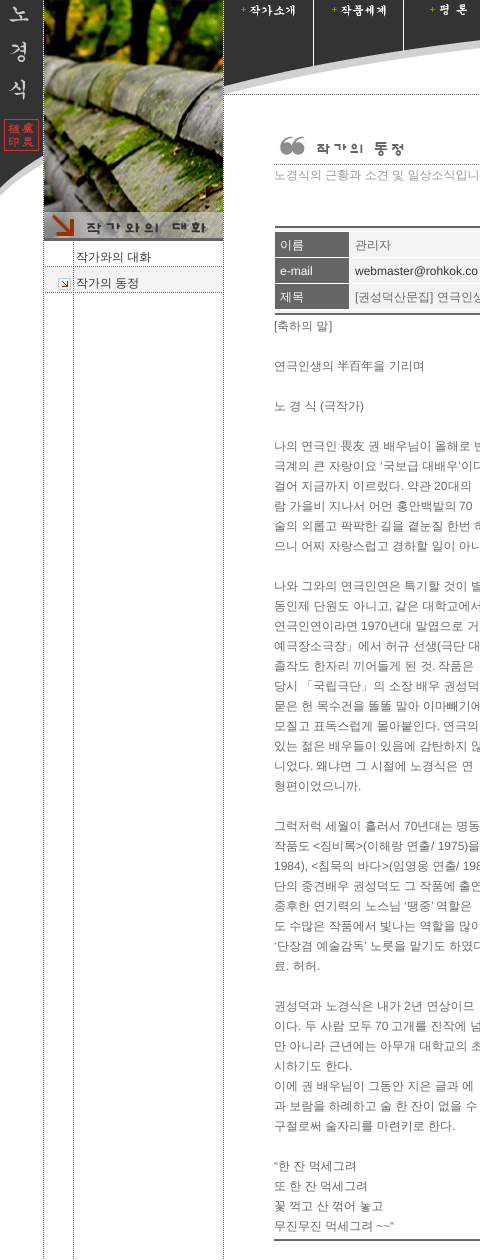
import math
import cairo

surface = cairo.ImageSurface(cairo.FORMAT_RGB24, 480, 1260)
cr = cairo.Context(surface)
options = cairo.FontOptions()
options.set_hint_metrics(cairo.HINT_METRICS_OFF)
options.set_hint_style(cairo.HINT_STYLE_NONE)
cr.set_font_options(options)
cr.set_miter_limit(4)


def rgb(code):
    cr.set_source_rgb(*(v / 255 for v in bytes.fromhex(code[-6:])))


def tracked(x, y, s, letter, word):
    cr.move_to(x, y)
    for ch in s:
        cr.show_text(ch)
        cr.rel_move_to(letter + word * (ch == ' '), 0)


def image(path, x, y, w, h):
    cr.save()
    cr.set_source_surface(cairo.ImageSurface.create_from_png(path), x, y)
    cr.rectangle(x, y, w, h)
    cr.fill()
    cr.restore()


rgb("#ffffff")
cr.paint()
image("img/1.png", 0, 0, 43, 196)
image("img/2.png", 43, 241, 181, 1018)
image("img/3.png", 43, 0, 181, 241)
image("img/4.png", 45, 266, 177, 1)
image("img/5.png", 44, 267, 179, 25)
image("img/6.png", 58, 278, 13, 12)
image("img/4.png", 45, 292, 177, 1)
image("img/7.png", 224, 0, 90, 74)
image("img/8.png", 314, 0, 90, 74)
image("img/9.png", 404, 0, 76, 59)
image("img/10.png", 224, 74, 89, 20)
image("img/11.png", 224, 94, 255, 1)
image("img/12.png", 274, 136, 205, 29)
for x, y, w, h, color in [
    (275, 228, 205, 3, "#f3f3f3"),
    (275, 226, 205, 2, "#666666"),
    (275, 232, 74, 25, "#666666"),
    (350, 232, 130, 25, "#f3f3f3"),
    (275, 258, 74, 25, "#666666"),
    (350, 258, 130, 25, "#f3f3f3"),
    (275, 284, 74, 25, "#666666"),
    (350, 284, 130, 25, "#f3f3f3"),
    (275, 310, 205, 3, "#f3f3f3"),
]:
    rgb(color)
    cr.rectangle(x, y, w, h)
    cr.fill()
image("img/13.png", 275, 313, 205, 2)
image("img/14.png", 274, 1239, 206, 2)
cr.select_font_face("WenQuanYi Zen Hei Medium")
cr.set_font_size(12)
rgb("#333333")
tracked(76, 261, "작가와의 대화", 0, -0.25)
tracked(76, 287, "작가의 동정", 0, -0.25)
rgb("#999999")
tracked(274, 179, "노경식의 근황과 소견 및 일상소식입니", 0, -0.25)
rgb("#ffffff")
cr.move_to(280, 249)
cr.show_text("이름")
rgb("#666666")
cr.move_to(355, 249)
cr.show_text("관리자")
cr.select_font_face("Liberation Sans")
rgb("#ffffff")
cr.move_to(280, 275)
cr.show_text("e-mail")
rgb("#333333")
cr.move_to(355, 275)
cr.show_text("webmaster@rohkok.co")
cr.select_font_face("WenQuanYi Zen Hei Medium")
rgb("#ffffff")
cr.move_to(280, 301)
cr.show_text("제목")
cr.select_font_face("Liberation Sans")
rgb("#666666")
cr.move_to(355, 301)
cr.show_text("[")
cr.select_font_face("WenQuanYi Zen Hei Medium")
cr.move_to(358, 301)
cr.show_text("권성덕산문집")
cr.select_font_face("Liberation Sans")
cr.move_to(430, 301)
cr.show_text("]")
cr.select_font_face("WenQuanYi Zen Hei Medium")
cr.move_to(437, 301)
cr.show_text("연극인생")
cr.select_font_face("Liberation Sans")
cr.move_to(274, 330)
cr.show_text("[")
cr.select_font_face("WenQuanYi Zen Hei Medium")
tracked(277, 330, "축하의 말", 0, -0.25)
cr.select_font_face("Liberation Sans")
cr.move_to(329, 330)
cr.show_text("]")
cr.select_font_face("WenQuanYi Zen Hei Medium")
tracked(274, 370, "연극인생의 半百年을 기리며", 0, -0.25)
tracked(274, 410, "노 경 식", 0, -0.25)
cr.select_font_face("Liberation Sans")
cr.move_to(320, 410)
cr.show_text("(")
cr.select_font_face("WenQuanYi Zen Hei Medium")
cr.move_to(324, 410)
cr.show_text("극작가")
cr.select_font_face("Liberation Sans")
cr.move_to(360, 410)
cr.show_text(")")
cr.select_font_face("WenQuanYi Zen Hei Medium")
tracked(274, 450, "나의 연극인 畏友 권 배우님이 올해로 반", 0, -0.25)
tracked(274, 470, "극계의 큰 자랑이요", 0, -0.25)
cr.select_font_face("Liberation Sans")
cr.move_to(380, 470)
cr.show_text("‘")
cr.select_font_face("WenQuanYi Zen Hei Medium")
tracked(383, 470, "국보급 대배우", 0, -0.25)
cr.select_font_face("Liberation Sans")
cr.move_to(458, 470)
cr.show_text("’")
cr.select_font_face("WenQuanYi Zen Hei Medium")
cr.move_to(461, 470)
cr.show_text("이다")
tracked(274, 490, "걸어 지금까지 이르렀다", 0, -0.25)
cr.select_font_face("Liberation Sans")
cr.move_to(401, 490)
cr.show_text(".")
cr.select_font_face("WenQuanYi Zen Hei Medium")
cr.move_to(407, 490)
cr.show_text("약관")
cr.select_font_face("Liberation Sans")
cr.move_to(434, 490)
cr.show_text("20")
cr.select_font_face("WenQuanYi Zen Hei Medium")
tracked(448, 490, "대의", 0, -0.25)
cr.move_to(274, 510)
cr.show_text("람 가을비 지나서 어언 홍안백발의")
cr.select_font_face("Liberation Sans")
cr.move_to(459, 510)
cr.show_text("70")
cr.select_font_face("WenQuanYi Zen Hei Medium")
for x, y, s in [
    (274, 530, "술의 외롭고 팍팍한 길을 곁눈질 한번 하"),
    (274, 550, "으니 어찌 자랑스럽고 경하할 일이 아니"),
    (274, 590, "나와 그와의 연극인연은 특기할 것이 별"),
]:
    tracked(x, y, s, 0, -0.25)
cr.move_to(274, 610)
cr.show_text("동인제 단원도 아니고")
cr.select_font_face("Liberation Sans")
cr.move_to(389, 610)
cr.show_text(",")
cr.select_font_face("WenQuanYi Zen Hei Medium")
cr.move_to(395, 610)
cr.show_text("같은 대학교에서")
cr.move_to(274, 630)
cr.show_text("연극인연이라면")
cr.select_font_face("Liberation Sans")
cr.move_to(361, 630)
cr.show_text("1970")
cr.select_font_face("WenQuanYi Zen Hei Medium")
cr.move_to(388, 630)
cr.show_text("년대 말엽으로 거")
cr.move_to(274, 650)
cr.show_text("예극장소극장」에서 허규 선생")
cr.select_font_face("Liberation Sans")
cr.move_to(437, 650)
cr.show_text("(")
cr.select_font_face("WenQuanYi Zen Hei Medium")
cr.move_to(441, 650)
cr.show_text("극단 대")
cr.move_to(274, 670)
cr.show_text("졸작도 한자리 끼어들게 된 것")
cr.select_font_face("Liberation Sans")
cr.move_to(432, 670)
cr.show_text(".")
cr.select_font_face("WenQuanYi Zen Hei Medium")
cr.move_to(438, 670)
cr.show_text("작품은")
for x, y, s in [
    (274, 690, "당시 「국립극단」의 소장 배우 권성덕"),
    (274, 710, "묻은 헌 목수건을 똘똘 말아 이마빼기에"),
    (274, 730, "모질고 표독스럽게 몰아붙인다"),
]:
    tracked(x, y, s, 0, -0.25)
cr.select_font_face("Liberation Sans")
cr.move_to(437, 730)
cr.show_text(".")
cr.select_font_face("WenQuanYi Zen Hei Medium")
tracked(443, 730, "연극의", 0, -0.25)
tracked(274, 750, "있는 젊은 배우들이 있음에 감탄하지 않", 0, -0.25)
cr.move_to(274, 770)
cr.show_text("니었다")
cr.select_font_face("Liberation Sans")
cr.move_to(310, 770)
cr.show_text(".")
cr.select_font_face("WenQuanYi Zen Hei Medium")
tracked(316, 770, "왜냐면 그 시절에 노경식은 연", 0, -0.25)
cr.move_to(274, 790)
cr.show_text("형편이었으니까")
cr.select_font_face("Liberation Sans")
cr.move_to(358, 790)
cr.show_text(".")
cr.select_font_face("WenQuanYi Zen Hei Medium")
tracked(274, 830, "그럭저럭 세월이 흘러서", 0, -0.25)
cr.select_font_face("Liberation Sans")
cr.move_to(404, 830)
cr.show_text("70")
cr.select_font_face("WenQuanYi Zen Hei Medium")
tracked(417, 830, "년대는 명동", 0, -0.25)
cr.move_to(274, 850)
cr.show_text("작품도")
cr.select_font_face("Liberation Sans")
cr.move_to(313, 850)
cr.show_text("<")
cr.select_font_face("WenQuanYi Zen Hei Medium")
cr.move_to(320, 850)
cr.show_text("징비록")
cr.select_font_face("Liberation Sans")
cr.move_to(356, 850)
cr.show_text(">(")
cr.select_font_face("WenQuanYi Zen Hei Medium")
cr.move_to(367, 850)
cr.show_text("이해랑 연출")
cr.select_font_face("Liberation Sans")
cr.move_to(431, 850)
cr.show_text("/ 1975)")
cr.select_font_face("WenQuanYi Zen Hei Medium")
cr.move_to(468, 850)
cr.show_text("을")
cr.select_font_face("Liberation Sans")
cr.move_to(274, 870)
cr.show_text("1984), <")
cr.select_font_face("WenQuanYi Zen Hei Medium")
cr.move_to(318, 870)
cr.show_text("침묵의 바다")
cr.select_font_face("Liberation Sans")
cr.move_to(382, 870)
cr.show_text(">(")
cr.select_font_face("WenQuanYi Zen Hei Medium")
cr.move_to(393, 870)
cr.show_text("임영웅 연출")
cr.select_font_face("Liberation Sans")
cr.move_to(456, 870)
cr.show_text("/ 198")
cr.select_font_face("WenQuanYi Zen Hei Medium")
tracked(274, 890, "단의 중견배우 권성덕도 그 작품에 출연", 0, -0.25)
cr.move_to(274, 910)
cr.show_text("중후한 연기력의 노스님")
cr.select_font_face("Liberation Sans")
cr.move_to(404, 910)
cr.show_text("‘")
cr.select_font_face("WenQuanYi Zen Hei Medium")
cr.move_to(407, 910)
cr.show_text("땡중")
cr.select_font_face("Liberation Sans")
cr.move_to(431, 910)
cr.show_text("’")
cr.select_font_face("WenQuanYi Zen Hei Medium")
cr.move_to(436, 910)
cr.show_text("역할은")
tracked(274, 930, "도 수많은 작품에서 빛나는 역할을 많이", 0, -0.25)
cr.select_font_face("Liberation Sans")
cr.move_to(274, 950)
cr.show_text("‘")
cr.select_font_face("WenQuanYi Zen Hei Medium")
cr.move_to(277, 950)
cr.show_text("단장겸 예술감독")
cr.select_font_face("Liberation Sans")
cr.move_to(364, 950)
cr.show_text("’")
cr.select_font_face("WenQuanYi Zen Hei Medium")
cr.move_to(370, 950)
cr.show_text("노릇을 맡기도 하였다")
cr.move_to(274, 970)
cr.show_text("료")
cr.select_font_face("Liberation Sans")
cr.move_to(286, 970)
cr.show_text(".")
cr.select_font_face("WenQuanYi Zen Hei Medium")
cr.move_to(293, 970)
cr.show_text("허허")
cr.select_font_face("Liberation Sans")
cr.move_to(317, 970)
cr.show_text(".")
cr.select_font_face("WenQuanYi Zen Hei Medium")
cr.move_to(274, 1010)
cr.show_text("권성덕과 노경식은 내가")
cr.select_font_face("Liberation Sans")
cr.move_to(404, 1010)
cr.show_text("2")
cr.select_font_face("WenQuanYi Zen Hei Medium")
cr.move_to(411, 1010)
cr.show_text("년 연상이므")
cr.move_to(274, 1030)
cr.show_text("이다")
cr.select_font_face("Liberation Sans")
cr.move_to(298, 1030)
cr.show_text(".")
cr.select_font_face("WenQuanYi Zen Hei Medium")
cr.move_to(305, 1030)
cr.show_text("두 사람 모두")
cr.select_font_face("Liberation Sans")
cr.move_to(375, 1030)
cr.show_text("70")
cr.select_font_face("WenQuanYi Zen Hei Medium")
cr.move_to(391, 1030)
cr.show_text("고개를 진작에 넘")
tracked(274, 1050, "만 아니라 근년에는 아무개 대학교의 초", 0, -0.25)
tracked(274, 1070, "시하기도 한다", 0, -0.25)
cr.select_font_face("Liberation Sans")
cr.move_to(349, 1070)
cr.show_text(".")
cr.select_font_face("WenQuanYi Zen Hei Medium")
for x, y, s in [
    (274, 1090, "이에 권 배우님이 그동안 지은 글과 에"),
    (274, 1110, "과 보람을 하례하고 술 한 잔이 없을 수"),
    (274, 1130, "구절로써 술자리를 마련키로 한다"),
]:
    tracked(x, y, s, 0, -0.25)
cr.select_font_face("Liberation Sans")
cr.move_to(452, 1130)
cr.show_text(".")
cr.move_to(274, 1170)
cr.show_text("“")
cr.select_font_face("WenQuanYi Zen Hei Medium")
for x, y, s in [
    (278, 1170, "한 잔 먹세그려"),
    (274, 1190, "또 한 잔 먹세그려"),
    (274, 1210, "꽃 꺽고 산 꺾어 놓고"),
    (274, 1230, "무진무진 먹세그려"),
]:
    tracked(x, y, s, 0, -0.25)
cr.select_font_face("Liberation Sans")
cr.move_to(376, 1230)
cr.show_text("~~“")
surface.write_to_png("page.png")
